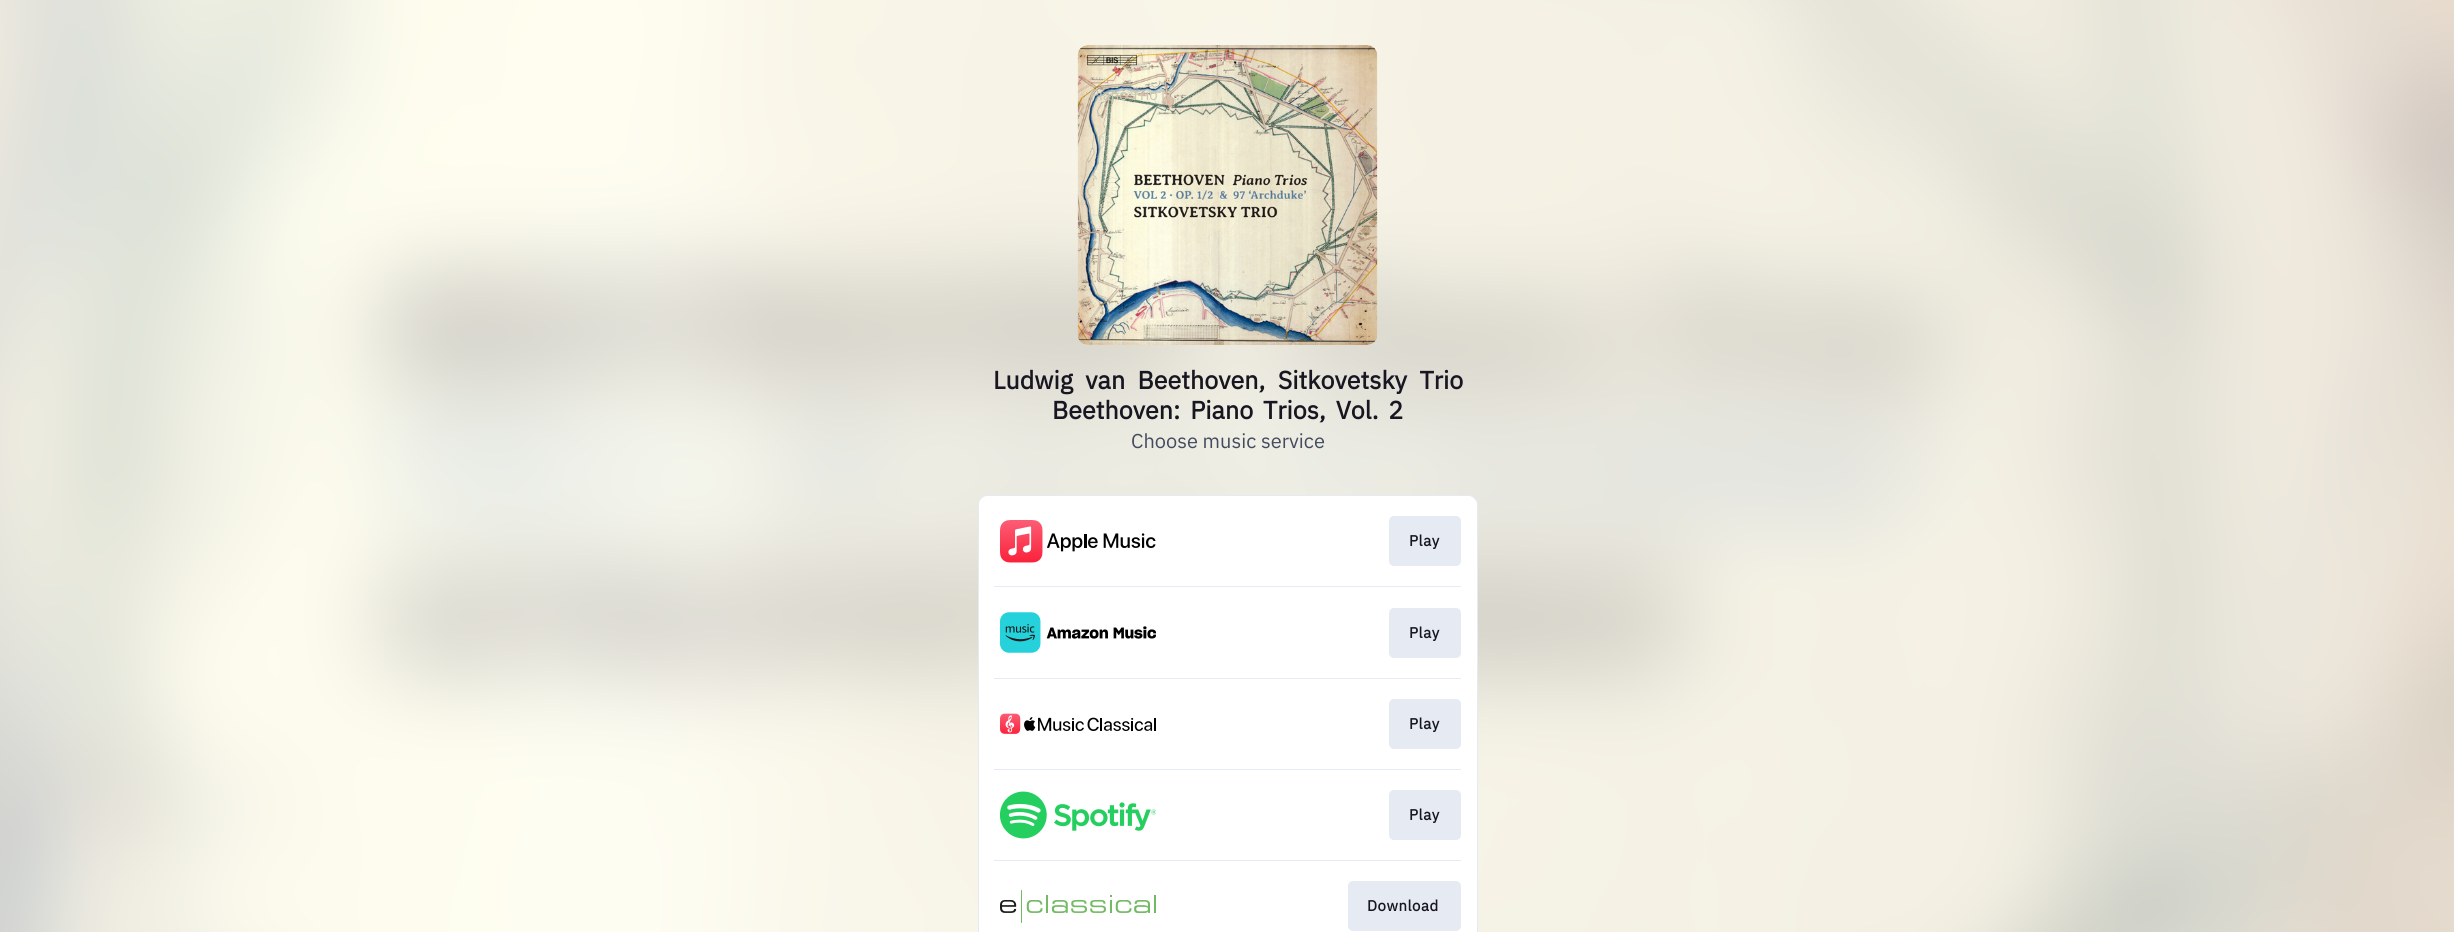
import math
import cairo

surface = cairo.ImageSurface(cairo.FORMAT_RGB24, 2454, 932)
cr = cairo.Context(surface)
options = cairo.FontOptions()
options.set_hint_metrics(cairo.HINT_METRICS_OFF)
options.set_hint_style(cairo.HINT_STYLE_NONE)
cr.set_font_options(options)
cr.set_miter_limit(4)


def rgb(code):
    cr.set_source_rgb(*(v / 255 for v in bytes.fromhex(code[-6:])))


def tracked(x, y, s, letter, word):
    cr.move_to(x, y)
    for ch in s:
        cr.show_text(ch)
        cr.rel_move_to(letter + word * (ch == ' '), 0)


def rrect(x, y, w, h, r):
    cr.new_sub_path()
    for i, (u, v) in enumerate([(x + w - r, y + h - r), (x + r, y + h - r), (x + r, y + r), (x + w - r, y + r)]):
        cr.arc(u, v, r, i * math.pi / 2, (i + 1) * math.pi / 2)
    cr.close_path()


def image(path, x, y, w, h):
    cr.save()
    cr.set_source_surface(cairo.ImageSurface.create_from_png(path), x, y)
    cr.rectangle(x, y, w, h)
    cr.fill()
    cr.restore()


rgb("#ffffff")
cr.paint()
image("img/1.png", 0, 0, 2454, 932)
image("img/2.png", 1077, 45, 301, 300)
rgb("#ffffff")
rrect(978.5, 495.5, 499, 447, 9.5)
cr.fill_preserve()
rgb("#e6eaf2")
cr.set_line_width(1)
cr.stroke()
rgb("#ffffff")
rrect(979, 496, 497, 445, 9)
cr.fill()
image("img/3.png", 1000, 520, 156, 43)
rgb("#e6eaf2")
rrect(1389, 516, 72, 50, 5)
cr.fill()
cr.rectangle(994, 586, 467, 1)
cr.fill()
image("img/4.png", 1000, 612, 156, 41)
rrect(1389, 608, 72, 50, 5)
cr.fill()
cr.rectangle(994, 678, 467, 1)
cr.fill()
image("img/5.png", 1000, 713, 156, 21)
rrect(1389, 699, 72, 50, 5)
cr.fill()
cr.rectangle(994, 769, 467, 1)
cr.fill()
image("img/6.png", 1000, 791, 156, 48)
rrect(1389, 790, 72, 50, 5)
cr.fill()
cr.rectangle(994, 860, 467, 1)
cr.fill()
image("img/7.png", 1000, 890, 156, 33)
rrect(1348, 881, 113, 50, 5)
cr.fill()
cr.select_font_face("IBM Plex Sans")
cr.set_font_size(15)
rgb("#c9c6b4")
cr.move_to(1090, 100)
cr.show_text("Piano Trio N…")
cr.select_font_face("IBM Plex Sans", cairo.FONT_SLANT_NORMAL, cairo.FONT_WEIGHT_BOLD)
cr.set_font_size(25)
rgb("#181721")
tracked(993, 389, "Ludwig van Beethoven, Sitkovetsky Trio", 0, 6.5)
tracked(1052, 419, "Beethoven: Piano Trios, Vol. 2", 0, 4)
cr.select_font_face("IBM Plex Sans")
cr.set_font_size(20)
rgb("#454b5f")
cr.move_to(1131, 448)
cr.show_text("Choose music service")
cr.select_font_face("IBM Plex Sans", cairo.FONT_SLANT_NORMAL, cairo.FONT_WEIGHT_BOLD)
cr.set_font_size(15)
rgb("#181721")
for x, y, s in [
    (1409, 546, "Play"),
    (1409, 638, "Play"),
    (1409, 729, "Play"),
    (1409, 820, "Play"),
    (1367, 911, "Download"),
]:
    tracked(x, y, s, 0.5, 0)
surface.write_to_png("page.png")
